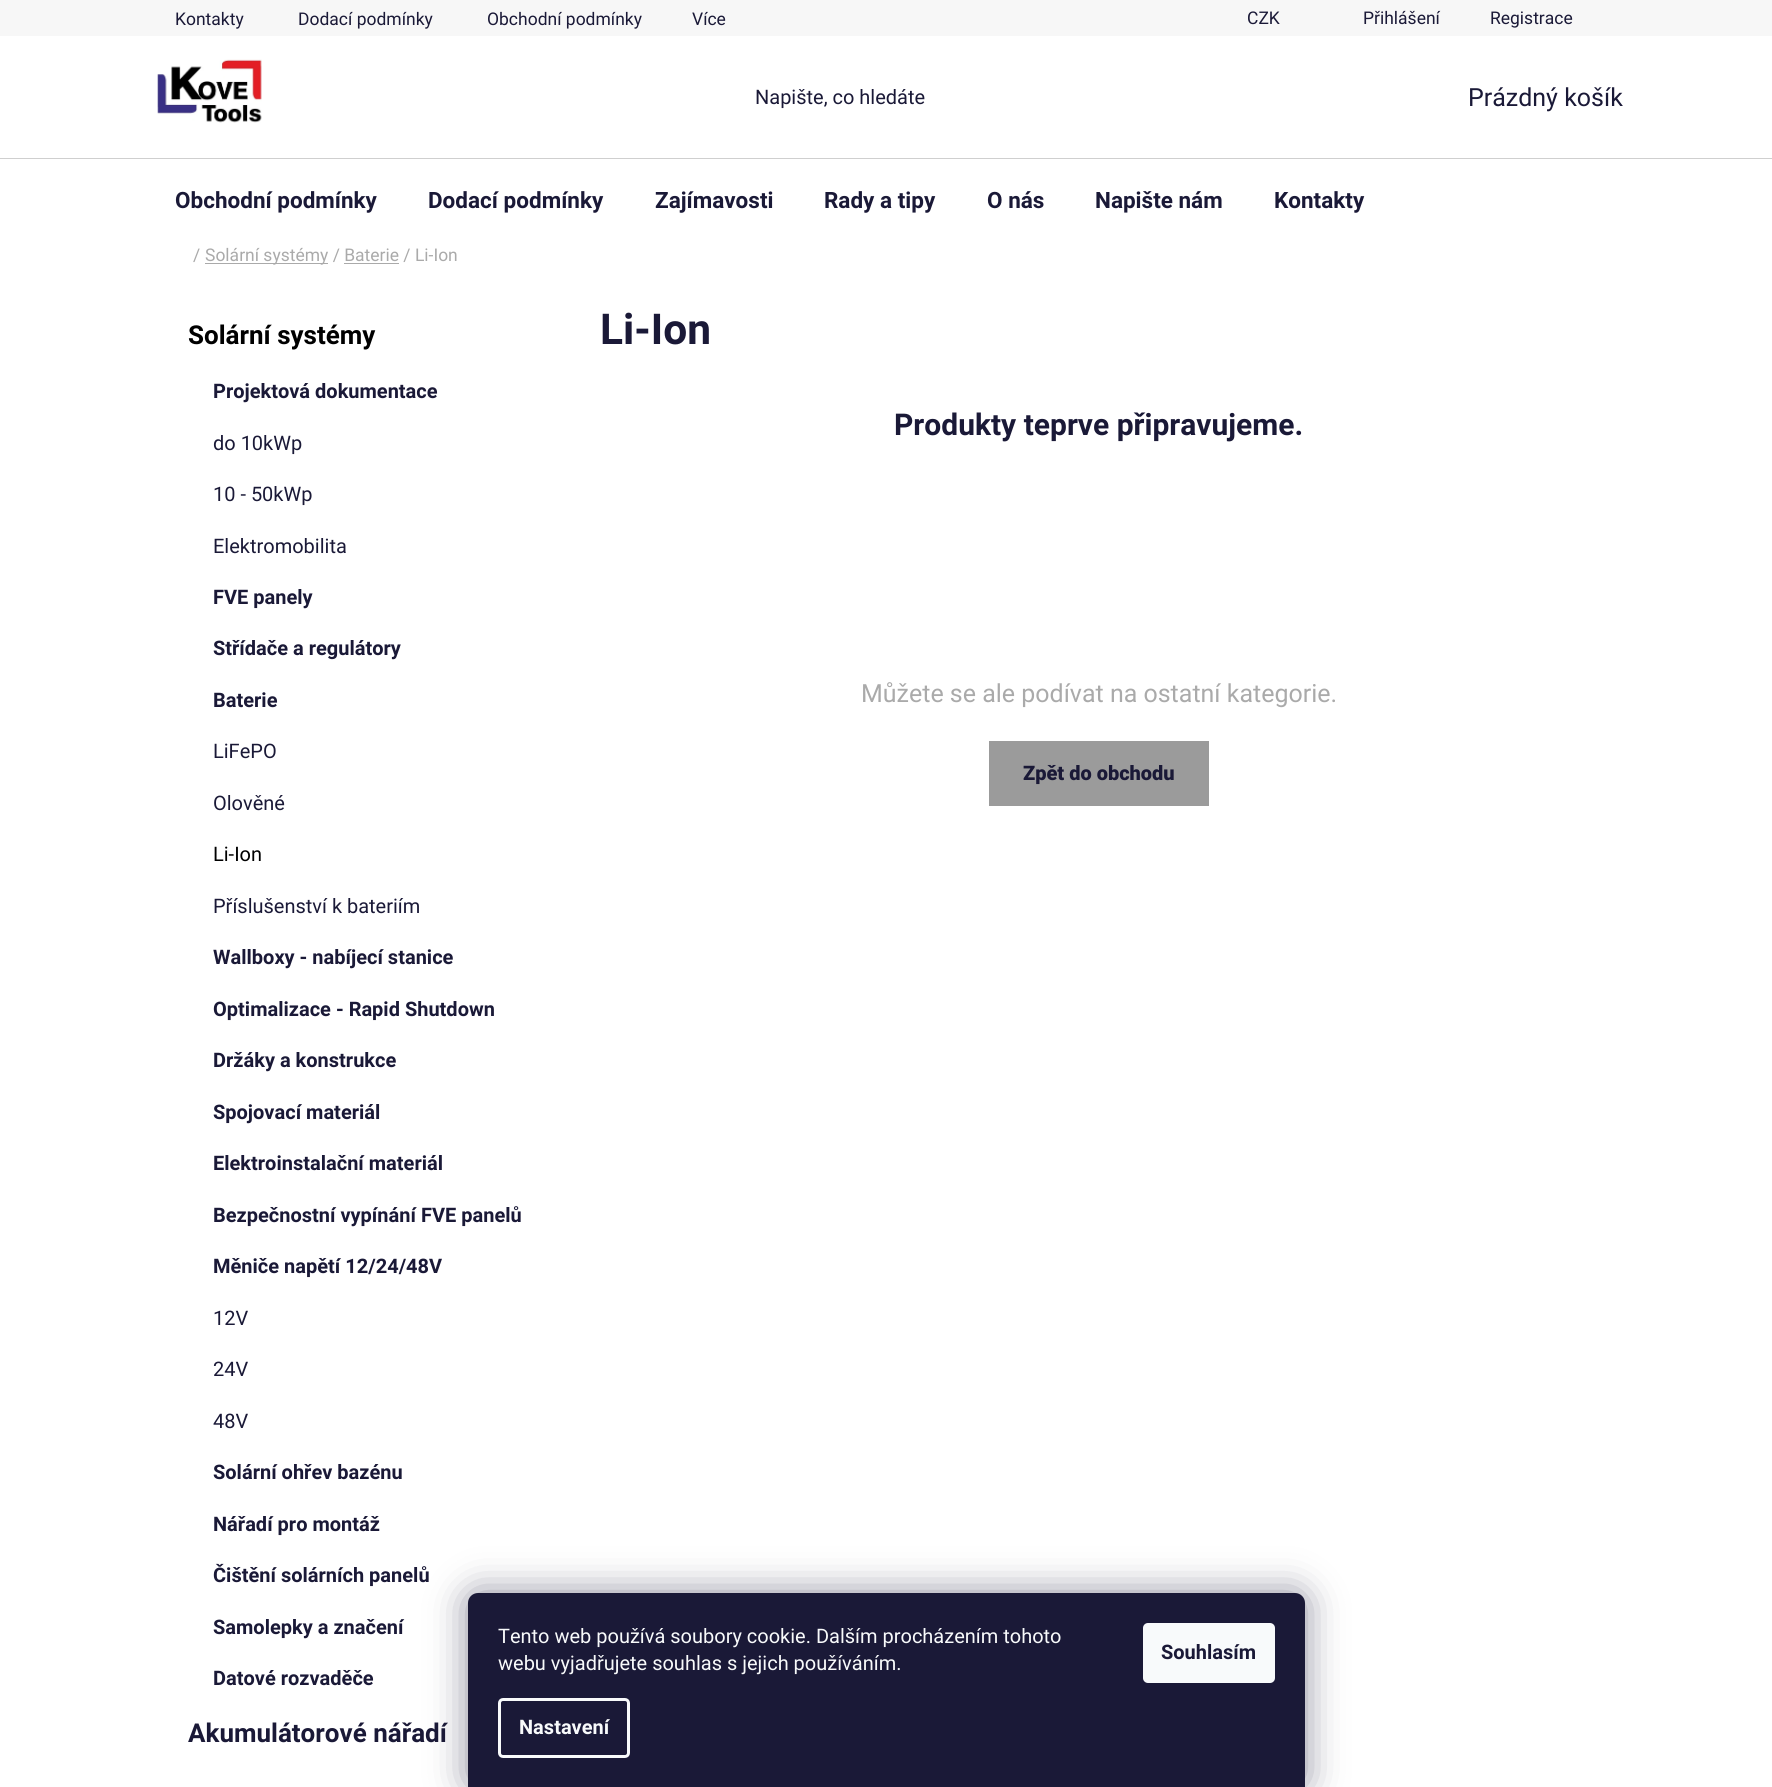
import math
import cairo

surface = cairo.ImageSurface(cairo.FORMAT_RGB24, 1772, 1787)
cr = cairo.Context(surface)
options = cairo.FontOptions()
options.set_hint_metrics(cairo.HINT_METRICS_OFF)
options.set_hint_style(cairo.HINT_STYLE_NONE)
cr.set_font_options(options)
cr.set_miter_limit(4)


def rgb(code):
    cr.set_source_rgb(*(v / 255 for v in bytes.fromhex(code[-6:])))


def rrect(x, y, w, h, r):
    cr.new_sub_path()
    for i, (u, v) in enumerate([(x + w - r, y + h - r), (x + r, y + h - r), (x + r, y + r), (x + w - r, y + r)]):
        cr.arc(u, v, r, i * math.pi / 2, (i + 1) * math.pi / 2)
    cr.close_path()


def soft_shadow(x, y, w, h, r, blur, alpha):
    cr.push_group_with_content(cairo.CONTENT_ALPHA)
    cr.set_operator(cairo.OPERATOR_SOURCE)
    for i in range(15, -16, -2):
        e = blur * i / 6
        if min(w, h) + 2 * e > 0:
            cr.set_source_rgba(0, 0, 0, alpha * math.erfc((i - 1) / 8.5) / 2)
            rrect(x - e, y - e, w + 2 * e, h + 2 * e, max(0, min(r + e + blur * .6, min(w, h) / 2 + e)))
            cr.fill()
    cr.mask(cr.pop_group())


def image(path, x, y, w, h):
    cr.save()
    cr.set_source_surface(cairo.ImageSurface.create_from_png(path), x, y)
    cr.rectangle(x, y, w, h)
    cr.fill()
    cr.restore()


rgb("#ffffff")
cr.paint()
rgb("#f7f7f7")
cr.rectangle(0, 0, 1772, 36)
cr.fill()
image("img/1.png", 157, 59, 105, 64)
for x, y, w, h, color in [
    (0, 158, 1772, 1, "#cfcfcf"),
    (205, 263, 123, 1, "#aaaaaa"),
    (344, 263, 55, 1, "#aaaaaa"),
    (989, 741, 220, 65, "#9b9b9b"),
]:
    rgb(color)
    cr.rectangle(x, y, w, h)
    cr.fill()
rgb("#1b1939")
soft_shadow(468, 1593, 837, 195, 10, 19, 0.5)
rgb("#1a1937")
cr.new_path()
cr.move_to(478, 1593)
cr.line_to(1295, 1593)
cr.curve_to(1300.5, 1593, 1305, 1597.5, 1305, 1603)
cr.line_to(1305, 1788)
cr.line_to(468, 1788)
cr.line_to(468, 1603)
cr.curve_to(468, 1597.5, 472.5, 1593, 478, 1593)
cr.close_path()
cr.fill()
rrect(499.5, 1699.5, 129, 57, 3.5)
rgb("#f8fafb")
cr.set_line_width(3)
cr.stroke()
rrect(1143, 1623, 132, 60, 5)
cr.fill()
cr.select_font_face("Roboto")
cr.set_font_size(17.5)
rgb("#1a1937")
for x, y, s in [
    (175, 25, "Kontakty"),
    (298, 25, "Dodací podmínky"),
    (487, 25, "Obchodní podmínky"),
    (692, 25, "Více"),
    (1247, 24, "CZK"),
    (1363, 24, "Přihlášení"),
    (1490, 24, "Registrace"),
]:
    cr.move_to(x, y)
    cr.show_text(s)
cr.set_font_size(20)
cr.move_to(755, 104)
cr.show_text("Napište, co hledáte")
cr.set_font_size(25)
cr.move_to(1468, 106)
cr.show_text("Prázdný košík")
cr.select_font_face("Roboto", cairo.FONT_SLANT_NORMAL, cairo.FONT_WEIGHT_BOLD)
cr.set_font_size(22.5)
for x, y, s in [
    (175, 208, "Obchodní podmínky"),
    (428, 208, "Dodací podmínky"),
    (655, 208, "Zajímavosti"),
    (824, 208, "Rady a tipy"),
    (987, 208, "O nás"),
    (1095, 208, "Napište nám"),
    (1274, 208, "Kontakty"),
]:
    cr.move_to(x, y)
    cr.show_text(s)
cr.select_font_face("Roboto")
cr.set_font_size(17.5)
rgb("#aaaaaa")
cr.move_to(193, 261)
cr.show_text("/")
cr.move_to(205, 261)
cr.show_text("Solární systémy / Baterie / Li-Ion")
cr.select_font_face("Roboto", cairo.FONT_SLANT_NORMAL, cairo.FONT_WEIGHT_BOLD)
cr.set_font_size(26)
rgb("#000000")
cr.move_to(188, 344)
cr.show_text("Solární systémy")
cr.set_font_size(20)
rgb("#1a1937")
cr.move_to(213, 398)
cr.show_text("Projektová dokumentace")
cr.select_font_face("Roboto")
for x, y, s in [
    (213, 450, "do 10kWp"),
    (213, 501, "10 - 50kWp"),
    (213, 553, "Elektromobilita"),
]:
    cr.move_to(x, y)
    cr.show_text(s)
cr.select_font_face("Roboto", cairo.FONT_SLANT_NORMAL, cairo.FONT_WEIGHT_BOLD)
for x, y, s in [
    (213, 604, "FVE panely"),
    (213, 655, "Střídače a regulátory"),
    (213, 707, "Baterie"),
]:
    cr.move_to(x, y)
    cr.show_text(s)
cr.select_font_face("Roboto")
cr.move_to(213, 758)
cr.show_text("LiFePO")
cr.move_to(213, 810)
cr.show_text("Olověné")
rgb("#000000")
cr.move_to(213, 861)
cr.show_text("Li-Ion")
rgb("#1a1937")
cr.move_to(213, 913)
cr.show_text("Příslušenství k bateriím")
cr.select_font_face("Roboto", cairo.FONT_SLANT_NORMAL, cairo.FONT_WEIGHT_BOLD)
for x, y, s in [
    (213, 964, "Wallboxy - nabíjecí stanice"),
    (213, 1016, "Optimalizace - Rapid Shutdown"),
    (213, 1067, "Držáky a konstrukce"),
    (213, 1119, "Spojovací materiál"),
    (213, 1170, "Elektroinstalační materiál"),
    (213, 1222, "Bezpečnostní vypínání FVE panelů"),
    (213, 1273, "Měniče napětí 12/24/48V"),
]:
    cr.move_to(x, y)
    cr.show_text(s)
cr.select_font_face("Roboto")
for x, y, s in [
    (213, 1325, "12V"),
    (213, 1376, "24V"),
    (213, 1428, "48V"),
]:
    cr.move_to(x, y)
    cr.show_text(s)
cr.select_font_face("Roboto", cairo.FONT_SLANT_NORMAL, cairo.FONT_WEIGHT_BOLD)
for x, y, s in [
    (213, 1479, "Solární ohřev bazénu"),
    (213, 1531, "Nářadí pro montáž"),
    (213, 1582, "Čištění solárních panelů"),
    (213, 1634, "Samolepky a značení"),
    (213, 1685, "Datové rozvaděče"),
]:
    cr.move_to(x, y)
    cr.show_text(s)
cr.set_font_size(26)
cr.move_to(188, 1742)
cr.show_text("Akumulátorové nářadí")
cr.set_font_size(42.5)
cr.move_to(600, 344)
cr.show_text("Li-Ion")
cr.set_font_size(30)
cr.move_to(894, 435)
cr.show_text("Produkty teprve připravujeme.")
cr.select_font_face("Roboto")
cr.set_font_size(25)
rgb("#aaaaaa")
cr.move_to(861, 702)
cr.show_text("Můžete se ale podívat na ostatní kategorie.")
cr.select_font_face("Roboto Black")
cr.set_font_size(20)
rgb("#1a1937")
cr.move_to(1023, 780)
cr.show_text("Zpět do obchodu")
cr.select_font_face("Roboto")
rgb("#f8fafb")
cr.move_to(498, 1643)
cr.show_text("Tento web používá soubory cookie. Dalším procházením tohoto")
cr.move_to(498, 1670)
cr.show_text("webu vyjadřujete souhlas s jejich používáním.")
cr.select_font_face("Roboto", cairo.FONT_SLANT_NORMAL, cairo.FONT_WEIGHT_BOLD)
cr.move_to(519, 1734)
cr.show_text("Nastavení")
rgb("#1a1937")
cr.move_to(1161, 1659)
cr.show_text("Souhlasím")
surface.write_to_png("page.png")
